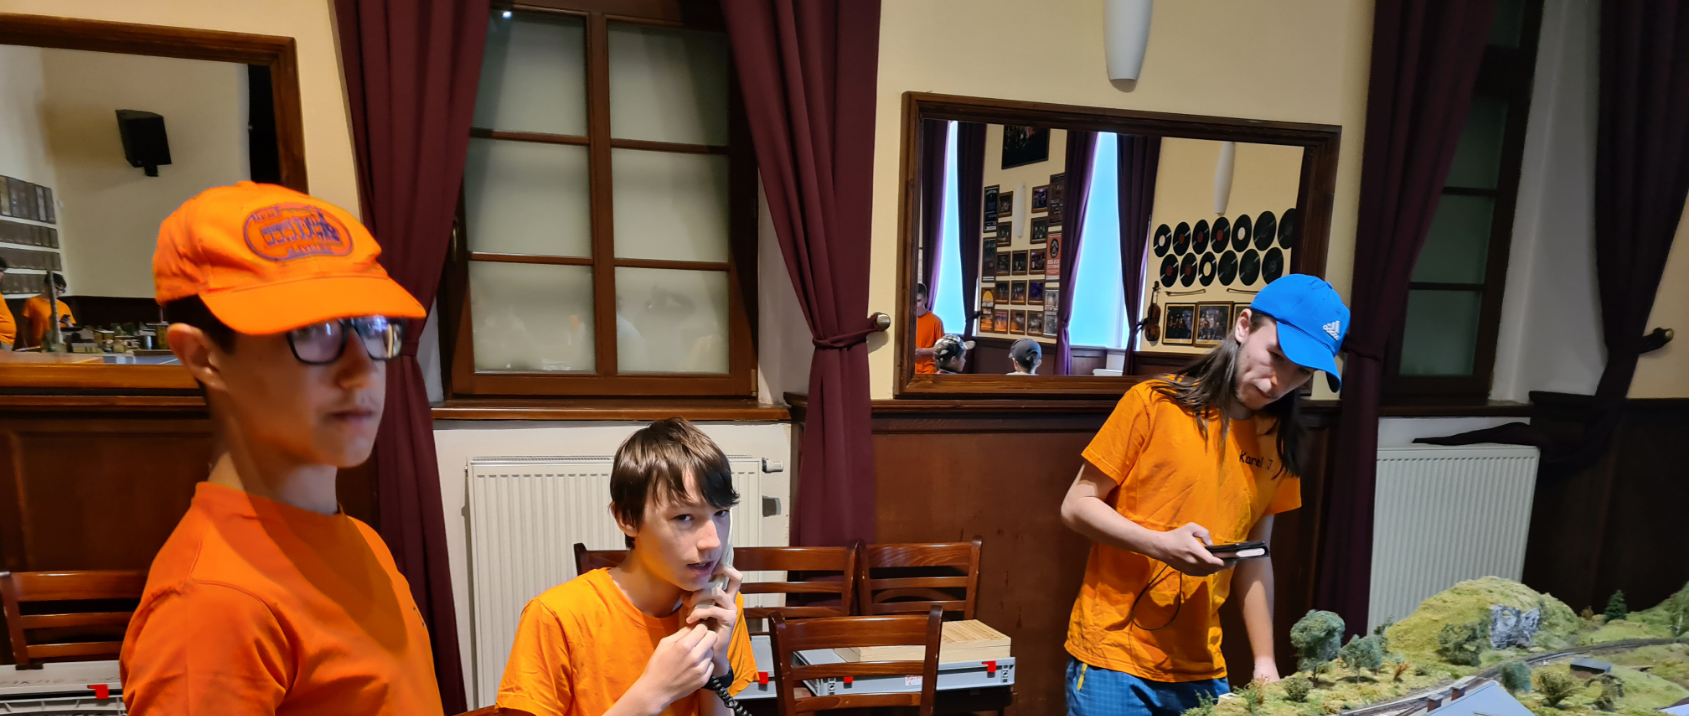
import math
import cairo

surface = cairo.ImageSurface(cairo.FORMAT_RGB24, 1689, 716)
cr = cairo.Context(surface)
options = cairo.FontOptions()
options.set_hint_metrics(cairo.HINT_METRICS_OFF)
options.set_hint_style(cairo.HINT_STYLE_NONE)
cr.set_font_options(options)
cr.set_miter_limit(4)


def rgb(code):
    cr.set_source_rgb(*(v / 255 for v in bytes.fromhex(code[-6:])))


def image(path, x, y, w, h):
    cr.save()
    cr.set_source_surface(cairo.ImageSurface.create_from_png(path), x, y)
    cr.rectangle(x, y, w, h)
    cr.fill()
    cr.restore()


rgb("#ffffff")
cr.paint()
image("img/1.png", 0, 0, 1689, 716)
surface.write_to_png("page.png")
